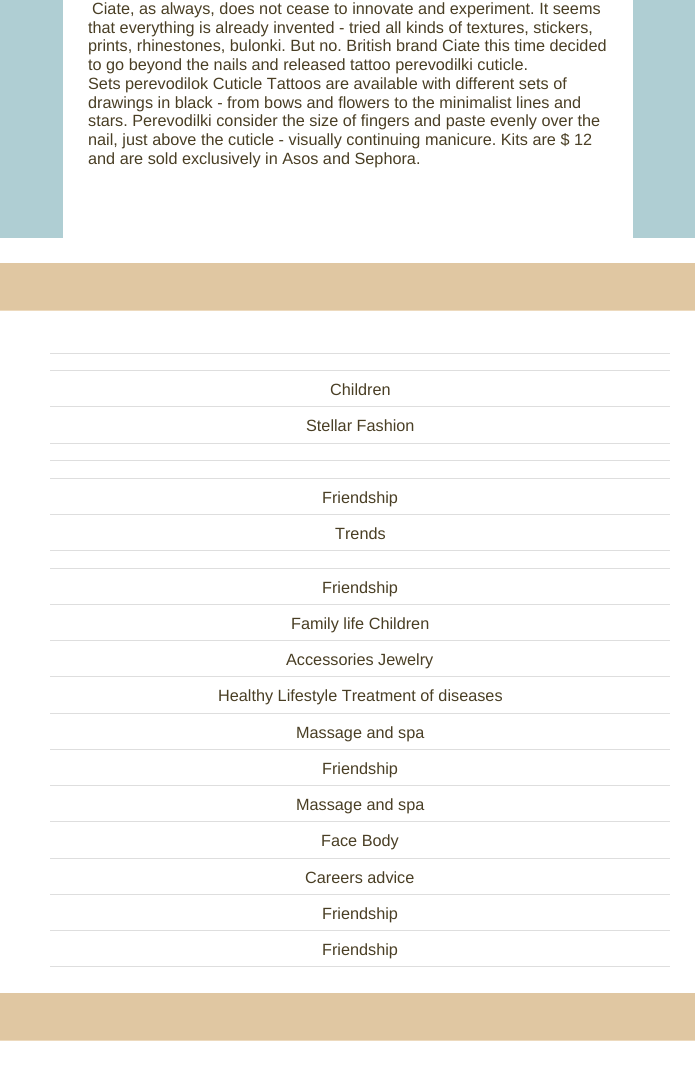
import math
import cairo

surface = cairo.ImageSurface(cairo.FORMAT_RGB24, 695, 1082)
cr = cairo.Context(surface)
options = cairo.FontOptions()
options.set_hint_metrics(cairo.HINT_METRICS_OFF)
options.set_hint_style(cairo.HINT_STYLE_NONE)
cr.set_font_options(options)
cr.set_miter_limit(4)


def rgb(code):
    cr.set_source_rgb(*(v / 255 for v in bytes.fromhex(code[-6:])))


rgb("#afced3")
cr.paint()
for x, y, w, h, color in [
    (63, 0, 570, 238, "#ffffff"),
    (0, 238, 695, 844, "#ffffff"),
    (0, 263, 695, 47, "#e0c7a2"),
    (0, 310, 695, 1, "#eddabe"),
    (50, 353, 620, 1, "#dedede"),
    (50, 370, 620, 1, "#dedede"),
    (50, 406, 620, 1, "#dedede"),
    (50, 443, 620, 1, "#dedede"),
    (50, 460, 620, 1, "#dedede"),
    (50, 478, 620, 1, "#dedede"),
    (50, 514, 620, 1, "#dedede"),
    (50, 550, 620, 1, "#dedede"),
    (50, 568, 620, 1, "#dedede"),
    (50, 604, 620, 1, "#dedede"),
    (50, 640, 620, 1, "#dedede"),
    (50, 676, 620, 1, "#dedede"),
    (50, 713, 620, 1, "#dedede"),
    (50, 749, 620, 1, "#dedede"),
    (50, 785, 620, 1, "#dedede"),
    (50, 821, 620, 1, "#dedede"),
    (50, 858, 620, 1, "#dedede"),
    (50, 894, 620, 1, "#dedede"),
    (50, 930, 620, 1, "#dedede"),
    (50, 966, 620, 1, "#dedede"),
    (0, 993, 695, 47, "#e0c7a2"),
    (0, 1040, 695, 1, "#eddabe"),
]:
    rgb(color)
    cr.rectangle(x, y, w, h)
    cr.fill()
cr.select_font_face("Liberation Sans")
cr.set_font_size(16.25)
rgb("#493e24")
for x, y, s in [
    (92, 14, "Ciate, as always, does not cease to innovate and experiment. It seems"),
    (88, 33, "that everything is already invented - tried all kinds of textures, stickers,"),
    (88, 51, "prints, rhinestones, bulonki. But no. British brand Ciate this time decided"),
    (88, 70, "to go beyond the nails and released tattoo perevodilki cuticle."),
    (88, 89, "Sets perevodilok Cuticle Tattoos are available with different sets of"),
    (88, 108, "drawings in black - from bows and flowers to the minimalist lines and"),
    (88, 126, "stars. Perevodilki consider the size of fingers and paste evenly over the"),
    (88, 145, "nail, just above the cuticle - visually continuing manicure. Kits are $ 12"),
    (88, 164, "and are sold exclusively in Asos and Sephora."),
    (330, 395, "Children"),
    (306, 431, "Stellar Fashion"),
    (322, 503, "Friendship"),
    (335, 539, "Trends"),
    (322, 593, "Friendship"),
    (291, 629, "Family life Children"),
    (286, 665, "Accessories Jewelry"),
    (218, 701, "Healthy Lifestyle Treatment of diseases"),
    (296, 738, "Massage and spa"),
    (322, 774, "Friendship"),
    (296, 810, "Massage and spa"),
    (321, 846, "Face Body"),
    (305, 883, "Careers advice"),
    (322, 919, "Friendship"),
    (322, 955, "Friendship"),
]:
    cr.move_to(x, y)
    cr.show_text(s)
surface.write_to_png("page.png")
